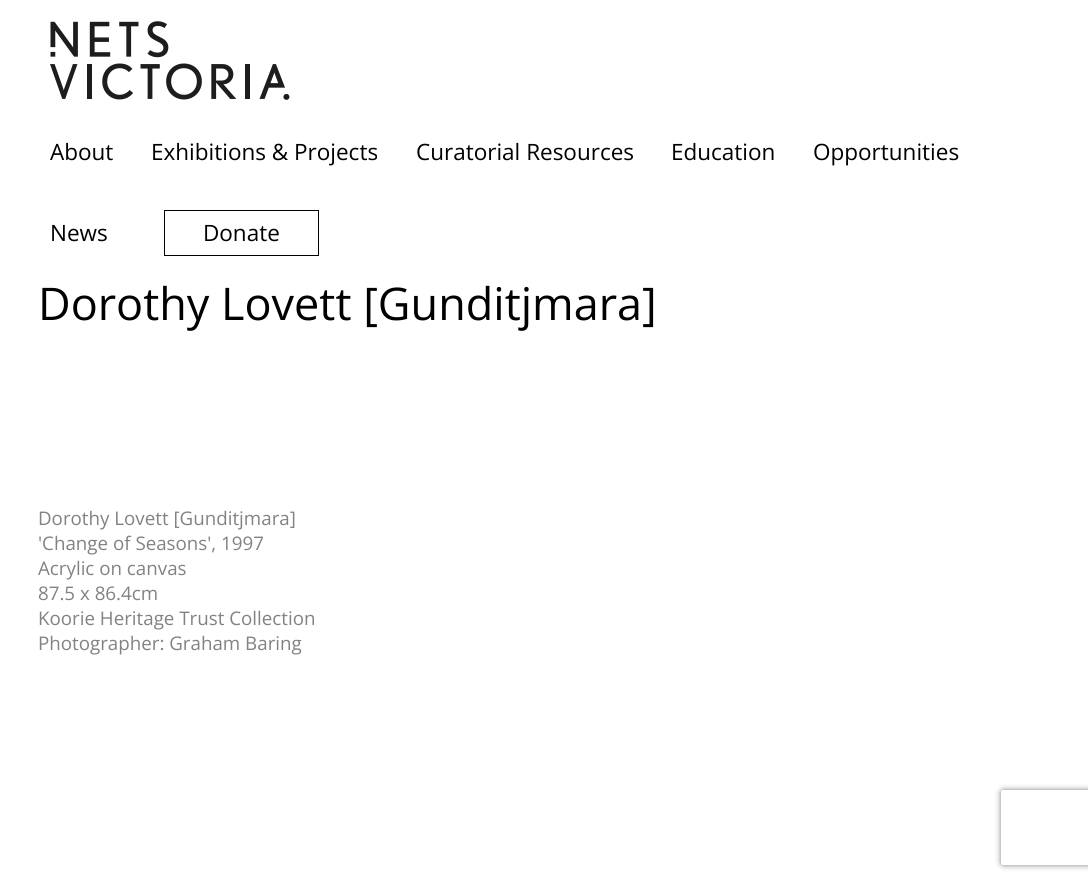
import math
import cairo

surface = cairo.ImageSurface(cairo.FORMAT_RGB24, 1088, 882)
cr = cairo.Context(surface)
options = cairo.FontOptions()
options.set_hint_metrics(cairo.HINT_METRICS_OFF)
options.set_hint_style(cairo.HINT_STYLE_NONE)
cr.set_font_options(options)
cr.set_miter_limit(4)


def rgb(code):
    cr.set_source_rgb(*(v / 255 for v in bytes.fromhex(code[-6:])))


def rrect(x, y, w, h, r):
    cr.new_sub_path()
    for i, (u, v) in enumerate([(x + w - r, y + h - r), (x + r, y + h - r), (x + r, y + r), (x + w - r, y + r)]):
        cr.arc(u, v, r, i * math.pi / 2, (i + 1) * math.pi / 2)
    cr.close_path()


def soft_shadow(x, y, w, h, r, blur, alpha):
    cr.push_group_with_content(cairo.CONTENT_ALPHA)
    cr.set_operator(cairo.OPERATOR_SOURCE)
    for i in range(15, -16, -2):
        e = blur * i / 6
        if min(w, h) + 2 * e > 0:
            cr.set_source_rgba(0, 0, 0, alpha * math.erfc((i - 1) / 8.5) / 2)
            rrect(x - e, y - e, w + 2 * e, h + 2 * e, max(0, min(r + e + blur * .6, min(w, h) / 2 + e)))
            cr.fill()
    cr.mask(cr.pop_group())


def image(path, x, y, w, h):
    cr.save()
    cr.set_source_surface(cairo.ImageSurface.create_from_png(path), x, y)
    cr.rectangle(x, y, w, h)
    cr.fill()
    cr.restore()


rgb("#ffffff")
cr.paint()
image("img/1.png", 50, 21, 240, 79)
cr.rectangle(164.5, 210.5, 154, 45)
rgb("#000000")
cr.set_line_width(1)
cr.stroke()
cr.save()
cr.set_fill_rule(cairo.FILL_RULE_EVEN_ODD)
cr.new_path()
cr.move_to(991, 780)
cr.line_to(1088, 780)
cr.line_to(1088, 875)
cr.line_to(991, 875)
cr.close_path()
cr.move_to(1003.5, 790)
cr.line_to(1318.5, 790)
cr.curve_to(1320, 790, 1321, 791, 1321, 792.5)
cr.line_to(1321, 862.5)
cr.curve_to(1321, 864, 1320, 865, 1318.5, 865)
cr.line_to(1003.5, 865)
cr.curve_to(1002, 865, 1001, 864, 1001, 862.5)
cr.line_to(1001, 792.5)
cr.curve_to(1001, 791, 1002, 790, 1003.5, 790)
cr.close_path()
cr.clip()
rgb("#808080")
soft_shadow(1001, 790, 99, 75, 2.5, 3, 1)
cr.restore()
cr.select_font_face("Open Sans")
cr.set_font_size(22.5)
for x, y, s in [
    (50, 160, "About"),
    (151, 160, "Exhibitions & Projects"),
    (416, 160, "Curatorial Resources"),
    (671, 160, "Education"),
    (813, 160, "Opportunities"),
    (50, 241, "News"),
    (203, 241, "Donate"),
]:
    cr.move_to(x, y)
    cr.show_text(s)
cr.set_font_size(45)
cr.move_to(38, 320)
cr.show_text("Dorothy Lovett [Gunditjmara]")
cr.set_font_size(18.75)
rgb("#828282")
for x, y, s in [
    (38, 525, "Dorothy Lovett [Gunditjmara]"),
    (38, 550, "'Change of Seasons', 1997"),
    (38, 575, "Acrylic on canvas"),
    (38, 600, "87.5 x 86.4cm"),
    (38, 625, "Koorie Heritage Trust Collection"),
    (38, 650, "Photographer: Graham Baring"),
]:
    cr.move_to(x, y)
    cr.show_text(s)
surface.write_to_png("page.png")
